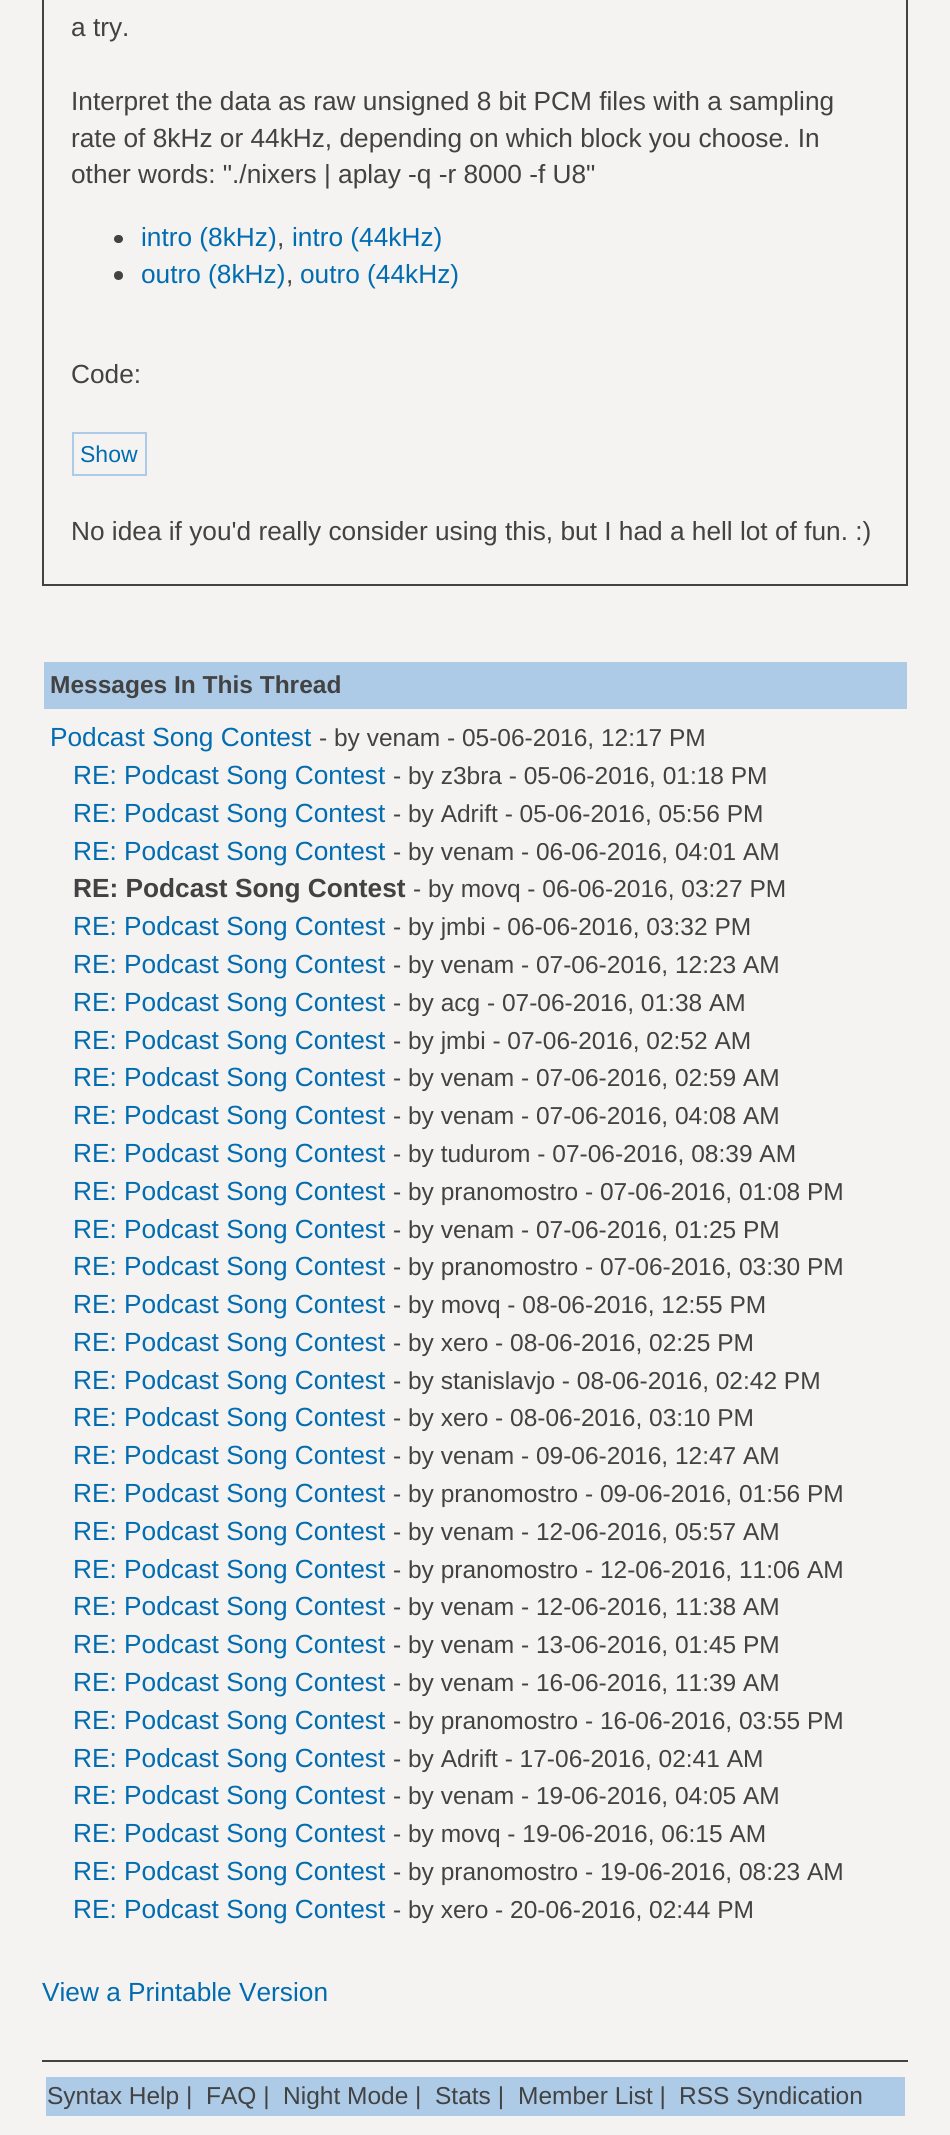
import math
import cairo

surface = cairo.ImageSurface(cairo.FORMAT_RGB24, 950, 2135)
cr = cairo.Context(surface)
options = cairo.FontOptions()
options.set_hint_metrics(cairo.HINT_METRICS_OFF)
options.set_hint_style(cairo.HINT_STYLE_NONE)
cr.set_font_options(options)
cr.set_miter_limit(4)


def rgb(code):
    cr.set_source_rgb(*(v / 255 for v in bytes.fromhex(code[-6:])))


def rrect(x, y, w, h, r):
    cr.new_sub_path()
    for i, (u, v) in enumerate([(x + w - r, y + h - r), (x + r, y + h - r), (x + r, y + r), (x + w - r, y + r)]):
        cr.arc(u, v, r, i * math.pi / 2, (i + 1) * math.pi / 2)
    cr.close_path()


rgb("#f4f3f2")
cr.paint()
cr.rectangle(43, -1, 864, 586)
rgb("#424242")
cr.stroke()
rrect(114, 235, 9, 8, 4)
cr.fill()
cr.arc(118.5, 275.5, 4.5, 0, 2 * math.pi)
cr.fill()
cr.rectangle(73, 433, 73, 42)
rgb("#adcbe7")
cr.stroke()
for x, y, w, h, color in [
    (44, 662, 863, 47, "#adcbe7"),
    (42, 2060, 866, 2, "#424242"),
    (46, 2077, 859, 39, "#adcbe7"),
]:
    rgb(color)
    cr.rectangle(x, y, w, h)
    cr.fill()
cr.select_font_face("Liberation Sans")
cr.set_font_size(26.25)
rgb("#424242")
for x, y, s in [
    (71, 36, "a try."),
    (71, 110, "Interpret the data as raw unsigned 8 bit PCM files with a sampling"),
    (71, 147, "rate of 8kHz or 44kHz, depending on which block you choose. In"),
    (71, 183, "other words: \"./nixers | aplay -q -r 8000 -f U8\""),
]:
    cr.move_to(x, y)
    cr.show_text(s)
rgb("#026cb1")
cr.move_to(141, 246)
cr.show_text("intro (8kHz)")
cr.move_to(292, 246)
cr.show_text("intro (44kHz)")
rgb("#424242")
cr.move_to(277, 246)
cr.show_text(",")
rgb("#026cb1")
cr.move_to(141, 283)
cr.show_text("outro (8kHz)")
cr.move_to(300, 283)
cr.show_text("outro (44kHz)")
rgb("#424242")
cr.move_to(286, 283)
cr.show_text(",")
cr.move_to(71, 383)
cr.show_text("Code:")
cr.set_font_size(23)
rgb("#026cb1")
cr.move_to(80, 462)
cr.show_text("Show")
cr.set_font_size(26.25)
rgb("#424242")
cr.move_to(71, 540)
cr.show_text("No idea if you'd really consider using this, but I had a hell lot of fun. :)")
cr.select_font_face("Liberation Sans", cairo.FONT_SLANT_NORMAL, cairo.FONT_WEIGHT_BOLD)
cr.set_font_size(24.5)
cr.move_to(50, 693)
cr.show_text("Messages In This Thread")
cr.select_font_face("Liberation Sans")
cr.set_font_size(26.25)
rgb("#026cb1")
cr.move_to(50, 746)
cr.show_text("Podcast Song Contest")
cr.set_font_size(24.5)
rgb("#424242")
cr.move_to(319, 746)
cr.show_text("- by venam - 05-06-2016, 12:17 PM")
cr.set_font_size(26.25)
rgb("#026cb1")
cr.move_to(73, 784)
cr.show_text("RE: Podcast Song Contest")
cr.set_font_size(24.5)
rgb("#424242")
cr.move_to(393, 784)
cr.show_text("- by z3bra - 05-06-2016, 01:18 PM")
cr.set_font_size(26.25)
rgb("#026cb1")
cr.move_to(73, 822)
cr.show_text("RE: Podcast Song Contest")
cr.set_font_size(24.5)
rgb("#424242")
cr.move_to(393, 822)
cr.show_text("- by Adrift - 05-06-2016, 05:56 PM")
cr.set_font_size(26.25)
rgb("#026cb1")
cr.move_to(73, 860)
cr.show_text("RE: Podcast Song Contest")
cr.set_font_size(24.5)
rgb("#424242")
cr.move_to(393, 860)
cr.show_text("- by venam - 06-06-2016, 04:01 AM")
cr.select_font_face("Liberation Sans", cairo.FONT_SLANT_NORMAL, cairo.FONT_WEIGHT_BOLD)
cr.set_font_size(26.25)
cr.move_to(73, 897)
cr.show_text("RE: Podcast Song Contest")
cr.select_font_face("Liberation Sans")
cr.set_font_size(24.5)
cr.move_to(413, 897)
cr.show_text("- by movq - 06-06-2016, 03:27 PM")
cr.set_font_size(26.25)
rgb("#026cb1")
cr.move_to(73, 935)
cr.show_text("RE: Podcast Song Contest")
cr.set_font_size(24.5)
rgb("#424242")
cr.move_to(393, 935)
cr.show_text("- by jmbi - 06-06-2016, 03:32 PM")
cr.set_font_size(26.25)
rgb("#026cb1")
cr.move_to(73, 973)
cr.show_text("RE: Podcast Song Contest")
cr.set_font_size(24.5)
rgb("#424242")
cr.move_to(393, 973)
cr.show_text("- by venam - 07-06-2016, 12:23 AM")
cr.set_font_size(26.25)
rgb("#026cb1")
cr.move_to(73, 1011)
cr.show_text("RE: Podcast Song Contest")
cr.set_font_size(24.5)
rgb("#424242")
cr.move_to(393, 1011)
cr.show_text("- by acg - 07-06-2016, 01:38 AM")
cr.set_font_size(26.25)
rgb("#026cb1")
cr.move_to(73, 1049)
cr.show_text("RE: Podcast Song Contest")
cr.set_font_size(24.5)
rgb("#424242")
cr.move_to(393, 1049)
cr.show_text("- by jmbi - 07-06-2016, 02:52 AM")
cr.set_font_size(26.25)
rgb("#026cb1")
cr.move_to(73, 1086)
cr.show_text("RE: Podcast Song Contest")
cr.set_font_size(24.5)
rgb("#424242")
cr.move_to(393, 1086)
cr.show_text("- by venam - 07-06-2016, 02:59 AM")
cr.set_font_size(26.25)
rgb("#026cb1")
cr.move_to(73, 1124)
cr.show_text("RE: Podcast Song Contest")
cr.set_font_size(24.5)
rgb("#424242")
cr.move_to(393, 1124)
cr.show_text("- by venam - 07-06-2016, 04:08 AM")
cr.set_font_size(26.25)
rgb("#026cb1")
cr.move_to(73, 1162)
cr.show_text("RE: Podcast Song Contest")
cr.set_font_size(24.5)
rgb("#424242")
cr.move_to(393, 1162)
cr.show_text("- by tudurom - 07-06-2016, 08:39 AM")
cr.set_font_size(26.25)
rgb("#026cb1")
cr.move_to(73, 1200)
cr.show_text("RE: Podcast Song Contest")
cr.set_font_size(24.5)
rgb("#424242")
cr.move_to(393, 1200)
cr.show_text("- by pranomostro - 07-06-2016, 01:08 PM")
cr.set_font_size(26.25)
rgb("#026cb1")
cr.move_to(73, 1238)
cr.show_text("RE: Podcast Song Contest")
cr.set_font_size(24.5)
rgb("#424242")
cr.move_to(393, 1238)
cr.show_text("- by venam - 07-06-2016, 01:25 PM")
cr.set_font_size(26.25)
rgb("#026cb1")
cr.move_to(73, 1275)
cr.show_text("RE: Podcast Song Contest")
cr.set_font_size(24.5)
rgb("#424242")
cr.move_to(393, 1275)
cr.show_text("- by pranomostro - 07-06-2016, 03:30 PM")
cr.set_font_size(26.25)
rgb("#026cb1")
cr.move_to(73, 1313)
cr.show_text("RE: Podcast Song Contest")
cr.set_font_size(24.5)
rgb("#424242")
cr.move_to(393, 1313)
cr.show_text("- by movq - 08-06-2016, 12:55 PM")
cr.set_font_size(26.25)
rgb("#026cb1")
cr.move_to(73, 1351)
cr.show_text("RE: Podcast Song Contest")
cr.set_font_size(24.5)
rgb("#424242")
cr.move_to(393, 1351)
cr.show_text("- by xero - 08-06-2016, 02:25 PM")
cr.set_font_size(26.25)
rgb("#026cb1")
cr.move_to(73, 1389)
cr.show_text("RE: Podcast Song Contest")
cr.set_font_size(24.5)
rgb("#424242")
cr.move_to(393, 1389)
cr.show_text("- by stanislavjo - 08-06-2016, 02:42 PM")
cr.set_font_size(26.25)
rgb("#026cb1")
cr.move_to(73, 1426)
cr.show_text("RE: Podcast Song Contest")
cr.set_font_size(24.5)
rgb("#424242")
cr.move_to(393, 1426)
cr.show_text("- by xero - 08-06-2016, 03:10 PM")
cr.set_font_size(26.25)
rgb("#026cb1")
cr.move_to(73, 1464)
cr.show_text("RE: Podcast Song Contest")
cr.set_font_size(24.5)
rgb("#424242")
cr.move_to(393, 1464)
cr.show_text("- by venam - 09-06-2016, 12:47 AM")
cr.set_font_size(26.25)
rgb("#026cb1")
cr.move_to(73, 1502)
cr.show_text("RE: Podcast Song Contest")
cr.set_font_size(24.5)
rgb("#424242")
cr.move_to(393, 1502)
cr.show_text("- by pranomostro - 09-06-2016, 01:56 PM")
cr.set_font_size(26.25)
rgb("#026cb1")
cr.move_to(73, 1540)
cr.show_text("RE: Podcast Song Contest")
cr.set_font_size(24.5)
rgb("#424242")
cr.move_to(393, 1540)
cr.show_text("- by venam - 12-06-2016, 05:57 AM")
cr.set_font_size(26.25)
rgb("#026cb1")
cr.move_to(73, 1578)
cr.show_text("RE: Podcast Song Contest")
cr.set_font_size(24.5)
rgb("#424242")
cr.move_to(393, 1578)
cr.show_text("- by pranomostro - 12-06-2016, 11:06 AM")
cr.set_font_size(26.25)
rgb("#026cb1")
cr.move_to(73, 1615)
cr.show_text("RE: Podcast Song Contest")
cr.set_font_size(24.5)
rgb("#424242")
cr.move_to(393, 1615)
cr.show_text("- by venam - 12-06-2016, 11:38 AM")
cr.set_font_size(26.25)
rgb("#026cb1")
cr.move_to(73, 1653)
cr.show_text("RE: Podcast Song Contest")
cr.set_font_size(24.5)
rgb("#424242")
cr.move_to(393, 1653)
cr.show_text("- by venam - 13-06-2016, 01:45 PM")
cr.set_font_size(26.25)
rgb("#026cb1")
cr.move_to(73, 1691)
cr.show_text("RE: Podcast Song Contest")
cr.set_font_size(24.5)
rgb("#424242")
cr.move_to(393, 1691)
cr.show_text("- by venam - 16-06-2016, 11:39 AM")
cr.set_font_size(26.25)
rgb("#026cb1")
cr.move_to(73, 1729)
cr.show_text("RE: Podcast Song Contest")
cr.set_font_size(24.5)
rgb("#424242")
cr.move_to(393, 1729)
cr.show_text("- by pranomostro - 16-06-2016, 03:55 PM")
cr.set_font_size(26.25)
rgb("#026cb1")
cr.move_to(73, 1767)
cr.show_text("RE: Podcast Song Contest")
cr.set_font_size(24.5)
rgb("#424242")
cr.move_to(393, 1767)
cr.show_text("- by Adrift - 17-06-2016, 02:41 AM")
cr.set_font_size(26.25)
rgb("#026cb1")
cr.move_to(73, 1804)
cr.show_text("RE: Podcast Song Contest")
cr.set_font_size(24.5)
rgb("#424242")
cr.move_to(393, 1804)
cr.show_text("- by venam - 19-06-2016, 04:05 AM")
cr.set_font_size(26.25)
rgb("#026cb1")
cr.move_to(73, 1842)
cr.show_text("RE: Podcast Song Contest")
cr.set_font_size(24.5)
rgb("#424242")
cr.move_to(393, 1842)
cr.show_text("- by movq - 19-06-2016, 06:15 AM")
cr.set_font_size(26.25)
rgb("#026cb1")
cr.move_to(73, 1880)
cr.show_text("RE: Podcast Song Contest")
cr.set_font_size(24.5)
rgb("#424242")
cr.move_to(393, 1880)
cr.show_text("- by pranomostro - 19-06-2016, 08:23 AM")
cr.set_font_size(26.25)
rgb("#026cb1")
cr.move_to(73, 1918)
cr.show_text("RE: Podcast Song Contest")
cr.set_font_size(24.5)
rgb("#424242")
cr.move_to(393, 1918)
cr.show_text("- by xero - 20-06-2016, 02:44 PM")
cr.set_font_size(26.25)
rgb("#026cb1")
cr.move_to(42, 2001)
cr.show_text("View a Printable Version")
cr.set_font_size(24.5)
rgb("#424242")
for x, y, s in [
    (47, 2104, "Syntax Help |"),
    (206, 2104, "FAQ |"),
    (283, 2104, "Night Mode |"),
    (435, 2104, "Stats |"),
    (518, 2104, "Member List |"),
    (679, 2104, "RSS Syndication"),
]:
    cr.move_to(x, y)
    cr.show_text(s)
surface.write_to_png("page.png")
